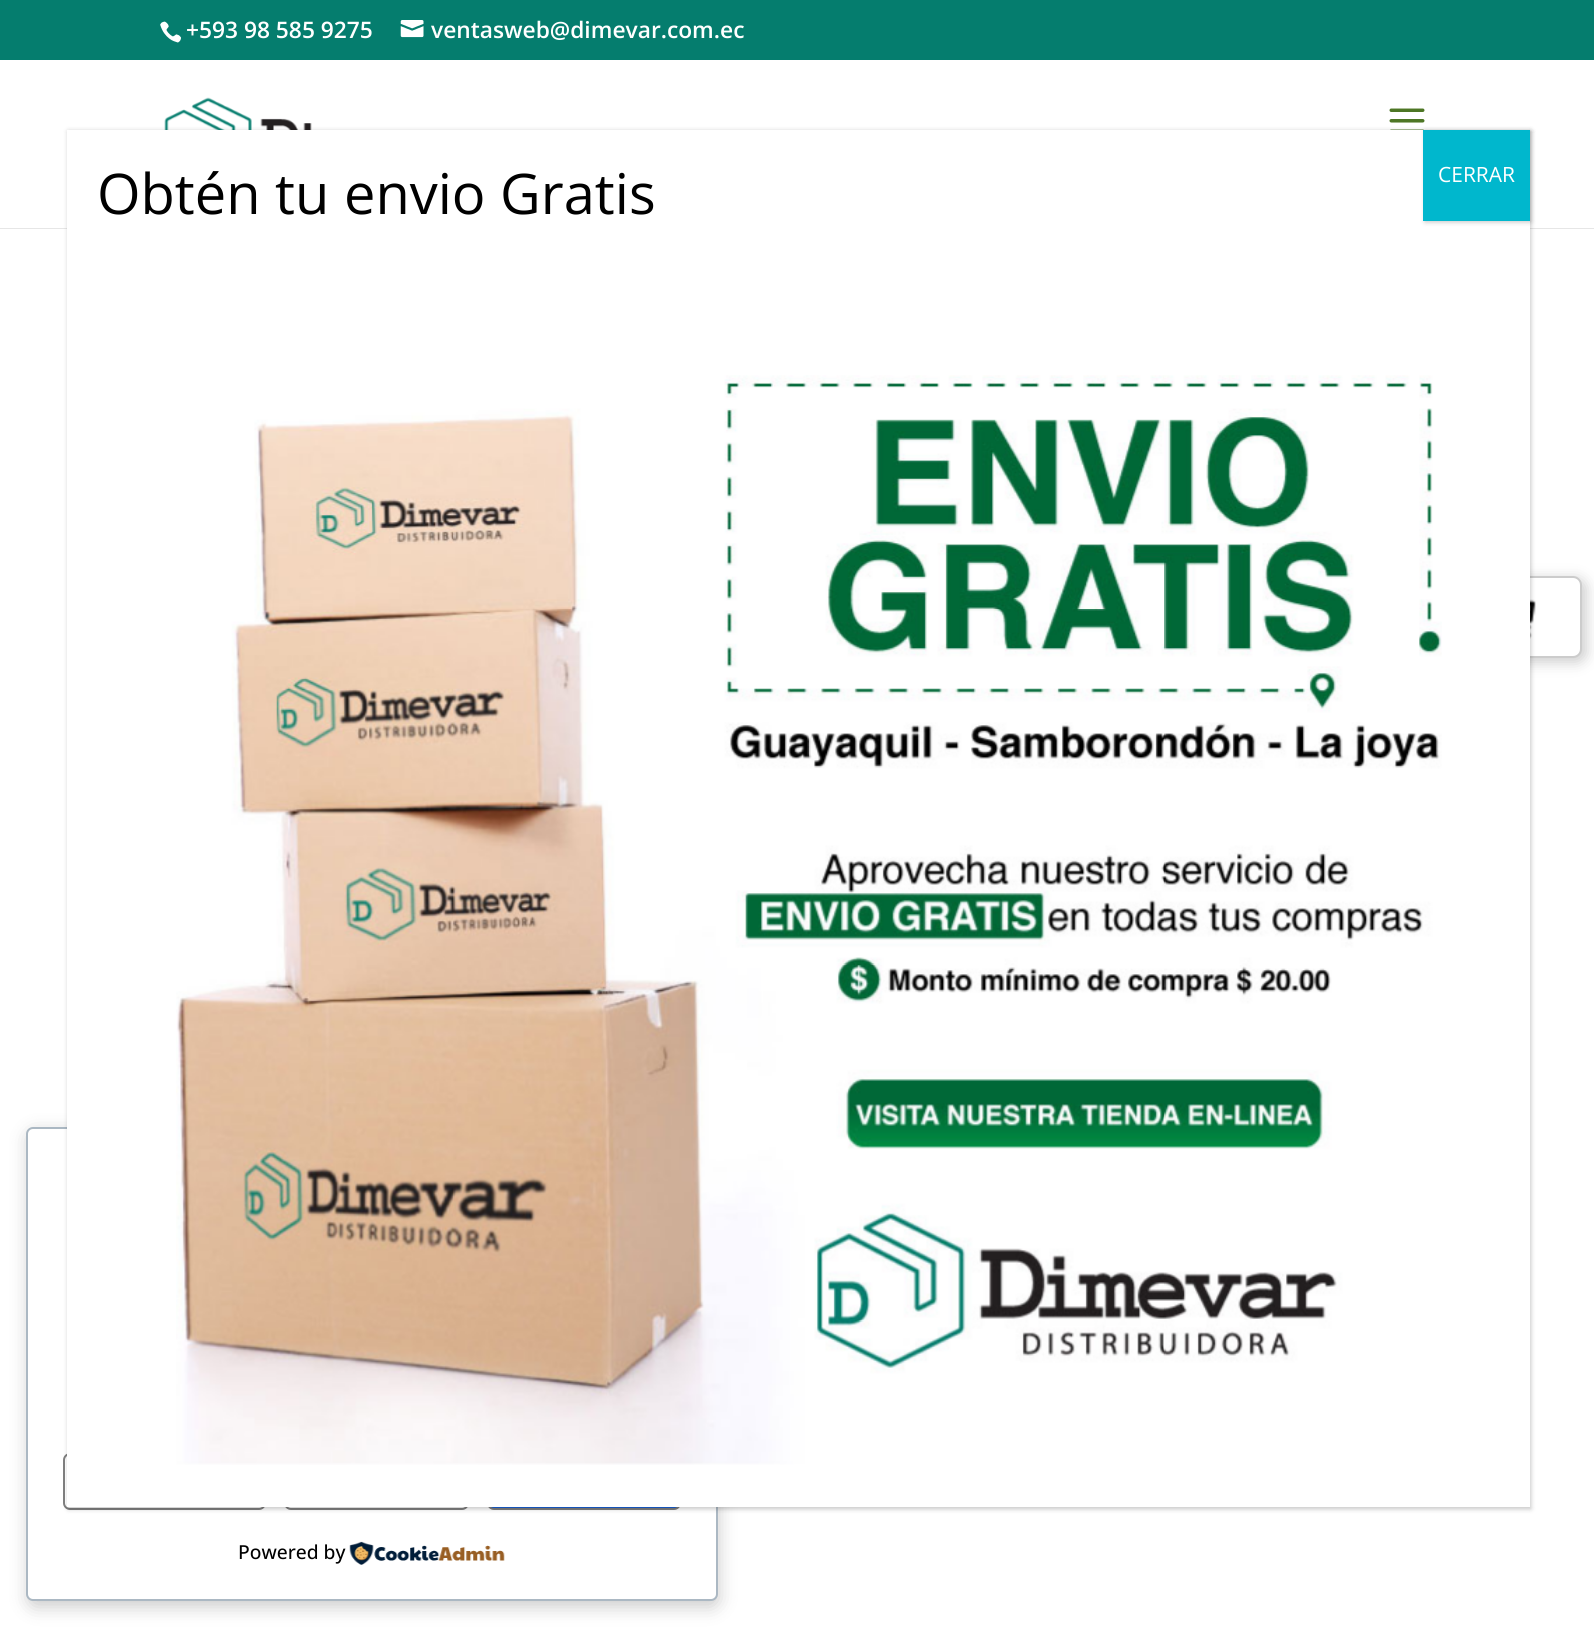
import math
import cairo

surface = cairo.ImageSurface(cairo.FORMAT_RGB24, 1594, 1635)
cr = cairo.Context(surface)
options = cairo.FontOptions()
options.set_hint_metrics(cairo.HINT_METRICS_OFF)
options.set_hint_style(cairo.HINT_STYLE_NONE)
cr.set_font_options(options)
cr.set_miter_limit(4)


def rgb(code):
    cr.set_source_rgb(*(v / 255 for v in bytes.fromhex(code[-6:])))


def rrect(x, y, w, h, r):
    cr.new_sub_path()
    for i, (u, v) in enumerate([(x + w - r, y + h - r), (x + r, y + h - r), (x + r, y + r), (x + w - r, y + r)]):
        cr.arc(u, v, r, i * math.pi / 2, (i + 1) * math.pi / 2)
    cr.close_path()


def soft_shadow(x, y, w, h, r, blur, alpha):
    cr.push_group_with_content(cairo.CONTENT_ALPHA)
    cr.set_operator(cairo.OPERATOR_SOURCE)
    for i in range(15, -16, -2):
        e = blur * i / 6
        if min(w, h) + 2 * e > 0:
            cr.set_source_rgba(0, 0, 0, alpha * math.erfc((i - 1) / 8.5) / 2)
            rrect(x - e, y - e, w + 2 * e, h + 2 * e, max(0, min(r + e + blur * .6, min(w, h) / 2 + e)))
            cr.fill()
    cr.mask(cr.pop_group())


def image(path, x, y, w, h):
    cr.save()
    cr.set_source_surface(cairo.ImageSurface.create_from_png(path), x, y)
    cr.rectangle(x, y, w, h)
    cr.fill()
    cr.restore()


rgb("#ffffff")
cr.paint()
rgb("#057d6e")
cr.rectangle(0, 0, 1594, 60)
cr.fill()
image("img/1.png", 160, 21, 21, 22)
image("img/2.png", 400, 20, 24, 18)
rgb("#e6e6e6")
cr.rectangle(0, 228, 1594, 1)
cr.fill()
image("img/3.png", 164, 97, 148, 33)
image("img/4.png", 1389, 108, 36, 22)
rgb("#cccccc")
soft_shadow(1477, 579, 109, 83, 9, 7, 1)
rgb("#ffffff")
rrect(1475, 577, 106, 80, 8)
cr.fill_preserve()
rgb("#cccccc")
cr.stroke()
image("img/6.png", 1530, 599, 6, 40)
rgb("#000000")
soft_shadow(28, 1132, 691, 475, 7, 9, 0.2)
rgb("#ffffff")
rrect(27, 1128, 690, 472, 6)
cr.fill_preserve()
rgb("#abb8c3")
cr.stroke()
rrect(64, 1454, 201, 55, 6)
rgb("#808080")
cr.stroke()
rrect(285, 1454, 183, 55, 6)
cr.stroke()
rgb("#1863dc")
rrect(488, 1454, 192, 55, 6)
cr.fill_preserve()
rgb("#808080")
cr.stroke()
rgb("#020202")
soft_shadow(68, 131, 1463, 1378, 0, 2.5, 0.23)
rgb("#ffffff")
cr.rectangle(67, 130, 1463, 1377)
cr.fill()
rgb("#020202")
soft_shadow(1425, 131, 106, 91, 0, 2.5, 0.23)
rgb("#00b7cd")
cr.rectangle(1423, 130, 107, 91)
cr.fill()
image("img/5.png", 176, 375, 1266, 1090)
image("img/7.png", 349, 1541, 156, 24)
cr.select_font_face("Open Sans SemiBold")
cr.set_font_size(22.75)
rgb("#ffffff")
cr.move_to(186, 38)
cr.show_text("+593 98 585 9275")
cr.move_to(431, 38)
cr.show_text("ventasweb@dimevar.com.ec")
cr.select_font_face("Open Sans")
cr.set_font_size(56)
rgb("#000000")
cr.move_to(97, 214)
cr.show_text("Obtén tu envio Gratis")
cr.set_font_size(21)
rgb("#ffffff")
cr.move_to(1438, 182)
cr.show_text("CERRAR")
cr.select_font_face("Open Sans Medium")
cr.set_font_size(19.25)
rgb("#000000")
cr.move_to(238, 1559)
cr.show_text("Powered by")
surface.write_to_png("page.png")
